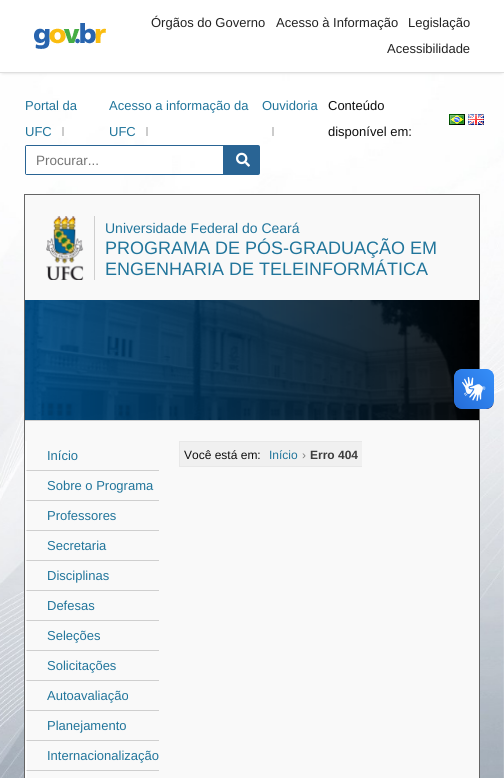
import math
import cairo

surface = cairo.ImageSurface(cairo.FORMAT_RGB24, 504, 778)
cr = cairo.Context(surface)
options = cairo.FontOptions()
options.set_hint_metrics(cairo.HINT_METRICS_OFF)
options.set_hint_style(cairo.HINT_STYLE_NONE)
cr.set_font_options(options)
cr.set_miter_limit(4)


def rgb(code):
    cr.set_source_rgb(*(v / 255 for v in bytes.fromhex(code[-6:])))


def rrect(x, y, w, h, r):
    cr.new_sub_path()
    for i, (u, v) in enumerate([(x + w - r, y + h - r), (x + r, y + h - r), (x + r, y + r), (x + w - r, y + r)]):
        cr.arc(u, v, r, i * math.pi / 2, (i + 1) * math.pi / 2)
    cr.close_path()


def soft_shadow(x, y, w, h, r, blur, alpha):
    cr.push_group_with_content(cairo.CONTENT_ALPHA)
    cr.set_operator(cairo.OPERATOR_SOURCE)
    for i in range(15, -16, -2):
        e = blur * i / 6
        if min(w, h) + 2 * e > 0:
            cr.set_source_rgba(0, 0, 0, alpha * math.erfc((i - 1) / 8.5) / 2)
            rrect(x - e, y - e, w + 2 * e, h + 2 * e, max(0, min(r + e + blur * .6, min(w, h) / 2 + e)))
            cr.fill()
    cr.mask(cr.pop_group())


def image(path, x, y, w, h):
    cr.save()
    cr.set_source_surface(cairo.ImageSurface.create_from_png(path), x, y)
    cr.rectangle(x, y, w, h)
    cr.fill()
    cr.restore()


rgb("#ffffff")
cr.paint()
image("img/1.png", 0, 73, 504, 705)
rgb("#333333")
soft_shadow(3, 3, 498, 67, 0, 2.5, 1)
rgb("#ffffff")
cr.rectangle(0, 0, 504, 72)
cr.fill()
rgb("#dfdfdf")
cr.rectangle(0, 72, 504, 1)
cr.fill()
image("img/2.png", 34, 23, 72, 26)
for x, y, w, h, color in [
    (62, 127, 2, 9, "#cccccc"),
    (146, 127, 2, 9, "#cccccc"),
    (272, 127, 2, 9, "#cccccc"),
]:
    rgb(color)
    cr.rectangle(x, y, w, h)
    cr.fill()
image("img/3.png", 449, 114, 16, 11)
image("img/4.png", 468, 114, 16, 11)
rrect(25.5, 145.5, 234, 29, 1.5)
rgb("#296494")
cr.set_line_width(1)
cr.stroke()
cr.rectangle(223, 146, 36, 28)
cr.fill()
rgb("#ffffff")
cr.rectangle(26, 146, 146, 28)
cr.fill()
image("img/5.png", 236, 152, 14, 15)
cr.rectangle(24.5, 194.5, 455, 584)
rgb("#656565")
cr.stroke()
for x, y, w, h, color in [
    (25, 195, 454, 583, "#f9f9f9"),
    (25, 420, 454, 1, "#cfcfcf"),
    (94, 216, 1, 64, "#cfcfcf"),
]:
    rgb(color)
    cr.rectangle(x, y, w, h)
    cr.fill()
image("img/6.png", 46, 216, 38, 64)
image("img/7.png", 25, 300, 454, 120)
cr.new_path()
cr.move_to(159, 471)
cr.line_to(25, 471)
cr.line_to(27, 470)
cr.line_to(159, 470)
cr.close_path()
cr.fill()
rgb("#ffffff")
cr.new_path()
cr.move_to(25, 471)
cr.line_to(25, 441)
cr.line_to(27, 441)
cr.line_to(27, 470)
cr.close_path()
cr.fill()
rgb("#cfcfcf")
cr.new_path()
cr.move_to(159, 501)
cr.line_to(25, 501)
cr.line_to(27, 500)
cr.line_to(159, 500)
cr.close_path()
cr.fill()
rgb("#ffffff")
cr.new_path()
cr.move_to(25, 501)
cr.line_to(25, 471)
cr.line_to(27, 471)
cr.line_to(27, 500)
cr.close_path()
cr.fill()
rgb("#cfcfcf")
cr.new_path()
cr.move_to(159, 531)
cr.line_to(25, 531)
cr.line_to(27, 530)
cr.line_to(159, 530)
cr.close_path()
cr.fill()
rgb("#ffffff")
cr.new_path()
cr.move_to(25, 531)
cr.line_to(25, 501)
cr.line_to(27, 501)
cr.line_to(27, 530)
cr.close_path()
cr.fill()
rgb("#cfcfcf")
cr.new_path()
cr.move_to(159, 561)
cr.line_to(25, 561)
cr.line_to(27, 560)
cr.line_to(159, 560)
cr.close_path()
cr.fill()
rgb("#ffffff")
cr.new_path()
cr.move_to(25, 561)
cr.line_to(25, 531)
cr.line_to(27, 531)
cr.line_to(27, 560)
cr.close_path()
cr.fill()
rgb("#cfcfcf")
cr.new_path()
cr.move_to(159, 591)
cr.line_to(25, 591)
cr.line_to(27, 590)
cr.line_to(159, 590)
cr.close_path()
cr.fill()
rgb("#ffffff")
cr.new_path()
cr.move_to(25, 591)
cr.line_to(25, 561)
cr.line_to(27, 561)
cr.line_to(27, 590)
cr.close_path()
cr.fill()
rgb("#cfcfcf")
cr.new_path()
cr.move_to(159, 621)
cr.line_to(25, 621)
cr.line_to(27, 620)
cr.line_to(159, 620)
cr.close_path()
cr.fill()
rgb("#ffffff")
cr.new_path()
cr.move_to(25, 621)
cr.line_to(25, 591)
cr.line_to(27, 591)
cr.line_to(27, 620)
cr.close_path()
cr.fill()
rgb("#cfcfcf")
cr.new_path()
cr.move_to(159, 651)
cr.line_to(25, 651)
cr.line_to(27, 650)
cr.line_to(159, 650)
cr.close_path()
cr.fill()
rgb("#ffffff")
cr.new_path()
cr.move_to(25, 651)
cr.line_to(25, 621)
cr.line_to(27, 621)
cr.line_to(27, 650)
cr.close_path()
cr.fill()
rgb("#cfcfcf")
cr.new_path()
cr.move_to(159, 681)
cr.line_to(25, 681)
cr.line_to(27, 680)
cr.line_to(159, 680)
cr.close_path()
cr.fill()
rgb("#ffffff")
cr.new_path()
cr.move_to(25, 681)
cr.line_to(25, 651)
cr.line_to(27, 651)
cr.line_to(27, 680)
cr.close_path()
cr.fill()
rgb("#cfcfcf")
cr.new_path()
cr.move_to(159, 711)
cr.line_to(25, 711)
cr.line_to(27, 710)
cr.line_to(159, 710)
cr.close_path()
cr.fill()
rgb("#ffffff")
cr.new_path()
cr.move_to(25, 711)
cr.line_to(25, 681)
cr.line_to(27, 681)
cr.line_to(27, 710)
cr.close_path()
cr.fill()
rgb("#cfcfcf")
cr.new_path()
cr.move_to(159, 741)
cr.line_to(25, 741)
cr.line_to(27, 740)
cr.line_to(159, 740)
cr.close_path()
cr.fill()
rgb("#ffffff")
cr.new_path()
cr.move_to(25, 741)
cr.line_to(25, 711)
cr.line_to(27, 711)
cr.line_to(27, 740)
cr.close_path()
cr.fill()
rgb("#cfcfcf")
cr.new_path()
cr.move_to(159, 771)
cr.line_to(25, 771)
cr.line_to(27, 770)
cr.line_to(159, 770)
cr.close_path()
cr.fill()
rgb("#ffffff")
cr.new_path()
cr.move_to(25, 771)
cr.line_to(25, 741)
cr.line_to(27, 741)
cr.line_to(27, 770)
cr.close_path()
cr.fill()
for x, y, w, h, color in [
    (25, 771, 2, 7, "#ffffff"),
    (180, 442, 182, 24, "#f0f0f0"),
    (179, 441, 183, 1, "#e8e8e8"),
    (179, 466, 183, 1, "#e8e8e8"),
    (179, 441, 1, 26, "#e8e8e8"),
]:
    rgb(color)
    cr.rectangle(x, y, w, h)
    cr.fill()
image("img/8.png", 454, 369, 40, 40)
image("img/9.png", 454, 369, 40, 40)
cr.select_font_face("Liberation Sans")
cr.set_font_size(13)
rgb("#232323")
for x, y, s in [
    (151, 27, "Órgãos do Governo"),
    (276, 27, "Acesso à Informação"),
    (408, 27, "Legislação"),
    (387, 53, "Acessibilidade"),
]:
    cr.move_to(x, y)
    cr.show_text(s)
rgb("#21759b")
for x, y, s in [
    (25, 110, "Portal da"),
    (25, 136, "UFC"),
    (109, 110, "Acesso a informação da"),
    (109, 136, "UFC"),
    (262, 110, "Ouvidoria"),
]:
    cr.move_to(x, y)
    cr.show_text(s)
rgb("#0f0f0f")
cr.move_to(328, 110)
cr.show_text("Conteúdo")
cr.move_to(328, 136)
cr.show_text("disponível em:")
cr.set_font_size(13.5)
rgb("#757575")
cr.move_to(36, 165)
cr.show_text("Procurar...")
cr.set_font_size(14)
rgb("#21759b")
cr.move_to(105, 233)
cr.show_text("Universidade Federal do Ceará")
cr.set_font_size(18)
cr.move_to(105, 254)
cr.show_text("PROGRAMA DE PÓS-GRADUAÇÃO EM")
cr.move_to(105, 275)
cr.show_text("ENGENHARIA DE TELEINFORMÁTICA")
cr.set_font_size(13)
for x, y, s in [
    (47, 460, "Início"),
    (47, 490, "Sobre o Programa"),
    (47, 520, "Professores"),
    (47, 550, "Secretaria"),
    (47, 580, "Disciplinas"),
    (47, 610, "Defesas"),
    (47, 640, "Seleções"),
    (47, 670, "Solicitações"),
    (47, 700, "Autoavaliação"),
    (47, 730, "Planejamento"),
    (47, 760, "Internacionalização"),
]:
    cr.move_to(x, y)
    cr.show_text(s)
cr.set_font_size(12)
rgb("#0f0f0f")
cr.move_to(184, 459)
cr.show_text("Você está em:")
rgb("#21759b")
cr.move_to(269, 459)
cr.show_text("Início")
rgb("#808080")
cr.move_to(302, 459)
cr.show_text("›")
cr.select_font_face("Liberation Sans", cairo.FONT_SLANT_NORMAL, cairo.FONT_WEIGHT_BOLD)
rgb("#3d3d3d")
cr.move_to(310, 459)
cr.show_text("Erro 404")
surface.write_to_png("page.png")
